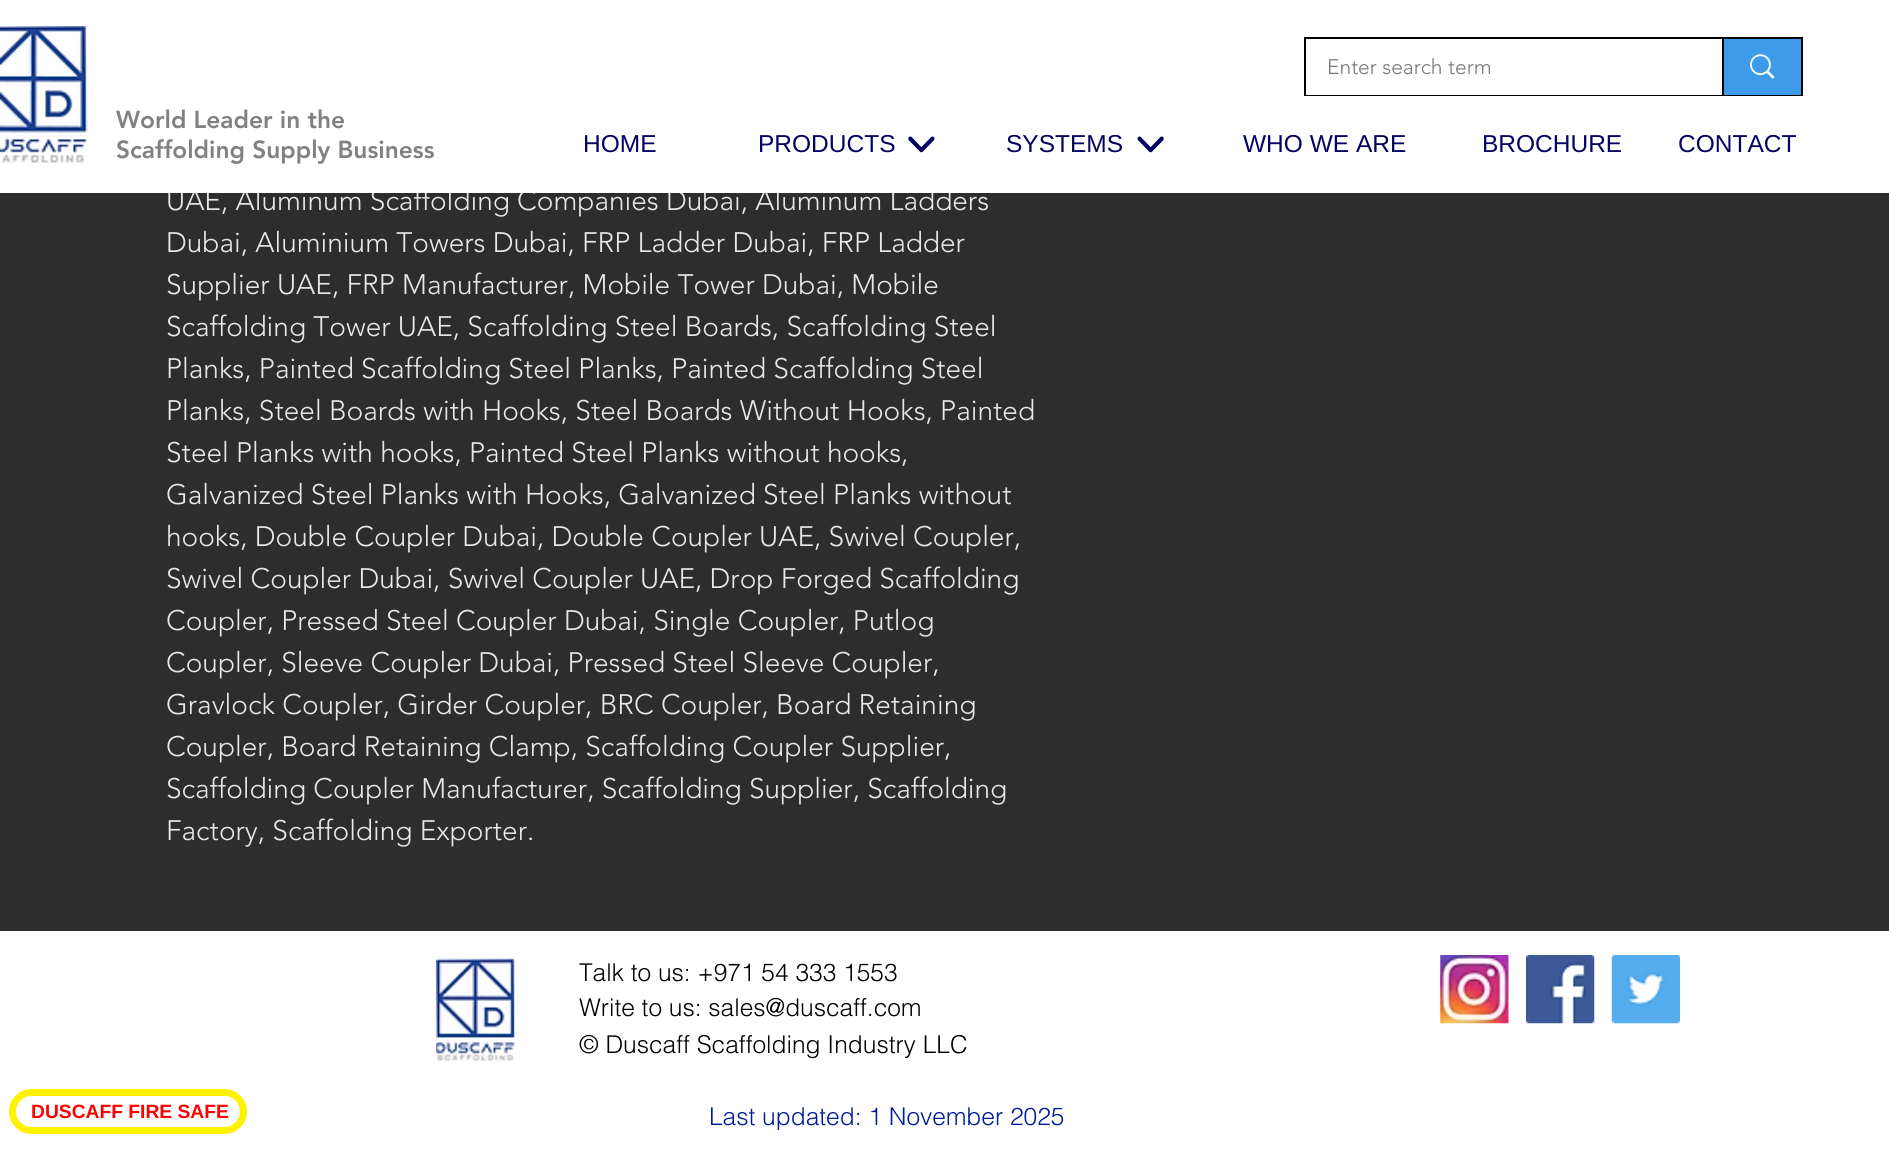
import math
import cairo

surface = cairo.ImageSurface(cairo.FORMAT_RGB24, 1889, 1159)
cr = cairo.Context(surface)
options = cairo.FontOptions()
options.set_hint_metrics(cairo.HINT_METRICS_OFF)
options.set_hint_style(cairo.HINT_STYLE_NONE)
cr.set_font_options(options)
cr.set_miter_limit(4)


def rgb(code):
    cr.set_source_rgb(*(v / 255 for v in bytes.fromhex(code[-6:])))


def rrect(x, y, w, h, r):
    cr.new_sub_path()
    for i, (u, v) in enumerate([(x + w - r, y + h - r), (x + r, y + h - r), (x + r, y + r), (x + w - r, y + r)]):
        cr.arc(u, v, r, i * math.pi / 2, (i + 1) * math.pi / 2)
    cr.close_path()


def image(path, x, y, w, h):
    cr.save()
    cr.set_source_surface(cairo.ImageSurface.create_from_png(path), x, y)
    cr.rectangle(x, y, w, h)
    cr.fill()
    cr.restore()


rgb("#2d2d2d")
cr.paint()
rgb("#ffffff")
cr.rectangle(0, 931, 1889, 228)
cr.fill()
rrect(12.5, 1092.5, 231, 38, 19)
rgb("#fff200")
cr.set_line_width(7)
cr.stroke()
image("img/5.png", 435, 958, 80, 104)
image("img/6.png", 1440, 955, 69, 69)
image("img/7.png", 1526, 955, 69, 69)
image("img/8.png", 1611, 955, 69, 69)
cr.select_font_face("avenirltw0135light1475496 Light")
cr.set_font_size(28)
rgb("#e8e8e8")
cr.move_to(166, 210)
cr.show_text("UAE, Aluminum Scaffolding Companies Dubai, Aluminum Ladders")
rgb("#ffffff")
cr.rectangle(0, 0, 1889, 193)
cr.fill()
cr.select_font_face("Liberation Sans")
cr.set_font_size(24.5)
rgb("#040263")
for x, y, s in [
    (1482, 152, "BROCHURE"),
    (1678, 152, "CONTACT"),
    (1243, 152, "WHO WE ARE"),
]:
    cr.move_to(x, y)
    cr.show_text(s)
image("img/4.png", 1137, 136, 27, 17)
image("img/3.png", 908, 136, 27, 17)
cr.move_to(1006, 152)
cr.show_text("SYSTEMS")
cr.move_to(758, 152)
cr.show_text("PRODUCTS")
cr.rectangle(1305, 38, 497, 57)
rgb("#000000")
cr.set_line_width(2)
cr.stroke()
cr.select_font_face("avenirltw0135light1475496 Light")
cr.set_font_size(21)
rgb("#787878")
cr.move_to(1327, 74)
cr.show_text("Enter search term")
rgb("#3d9be9")
cr.rectangle(1724, 39, 77, 56)
cr.fill()
image("img/2.png", 1750, 54, 25, 25)
rgb("#000000")
cr.rectangle(1722, 39, 2, 56)
cr.fill()
rgb("#ffffff")
cr.rectangle(1306, 94, 416, 1)
cr.fill()
cr.select_font_face("Liberation Sans")
cr.set_font_size(24.5)
rgb("#040263")
cr.move_to(583, 152)
cr.show_text("HOME")
cr.select_font_face("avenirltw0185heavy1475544 Black")
rgb("#818181")
cr.move_to(116, 158)
cr.show_text("Scaffolding Supply Business")
cr.move_to(116, 128)
cr.show_text("World Leader in the")
image("img/1.png", 0, 26, 88, 137)
cr.select_font_face("avenirltw0135light1475496 Light")
cr.set_font_size(28)
rgb("#e8e8e8")
for x, y, s in [
    (166, 252, "Dubai, Aluminium Towers Dubai, FRP Ladder Dubai, FRP Ladder"),
    (166, 294, "Supplier UAE, FRP Manufacturer, Mobile Tower Dubai, Mobile"),
    (166, 336, "Scaffolding Tower UAE, Scaffolding Steel Boards, Scaffolding Steel"),
    (166, 378, "Planks, Painted Scaffolding Steel Planks, Painted Scaffolding Steel"),
    (166, 420, "Planks, Steel Boards with Hooks, Steel Boards Without Hooks, Painted"),
    (166, 462, "Steel Planks with hooks, Painted Steel Planks without hooks,"),
    (166, 504, "Galvanized Steel Planks with Hooks, Galvanized Steel Planks without"),
    (166, 546, "hooks, Double Coupler Dubai, Double Coupler UAE, Swivel Coupler,"),
    (166, 588, "Swivel Coupler Dubai, Swivel Coupler UAE, Drop Forged Scaffolding"),
    (166, 630, "Coupler, Pressed Steel Coupler Dubai, Single Coupler, Putlog"),
    (166, 672, "Coupler, Sleeve Coupler Dubai, Pressed Steel Sleeve Coupler,"),
    (166, 714, "Gravlock Coupler, Girder Coupler, BRC Coupler, Board Retaining"),
    (166, 756, "Coupler, Board Retaining Clamp, Scaffolding Coupler Supplier,"),
    (166, 798, "Scaffolding Coupler Manufacturer, Scaffolding Supplier, Scaffolding"),
    (166, 840, "Factory, Scaffolding Exporter."),
]:
    cr.move_to(x, y)
    cr.show_text(s)
cr.select_font_face("Liberation Sans", cairo.FONT_SLANT_NORMAL, cairo.FONT_WEIGHT_BOLD)
cr.set_font_size(19.25)
rgb("#ff0000")
cr.move_to(31, 1118)
cr.show_text("DUSCAFF FIRE SAFE")
cr.select_font_face("helvetica Light")
cr.set_font_size(24.5)
rgb("#000000")
for x, y, s in [
    (579, 981, "Talk to us: +971 54 333 1553"),
    (579, 1016, "Write to us: sales@duscaff.com"),
    (579, 1053, "© Duscaff Scaffolding Industry LLC"),
]:
    cr.move_to(x, y)
    cr.show_text(s)
rgb("#001a9e")
cr.move_to(709, 1125)
cr.show_text("Last updated: 1 November 2025")
surface.write_to_png("page.png")
